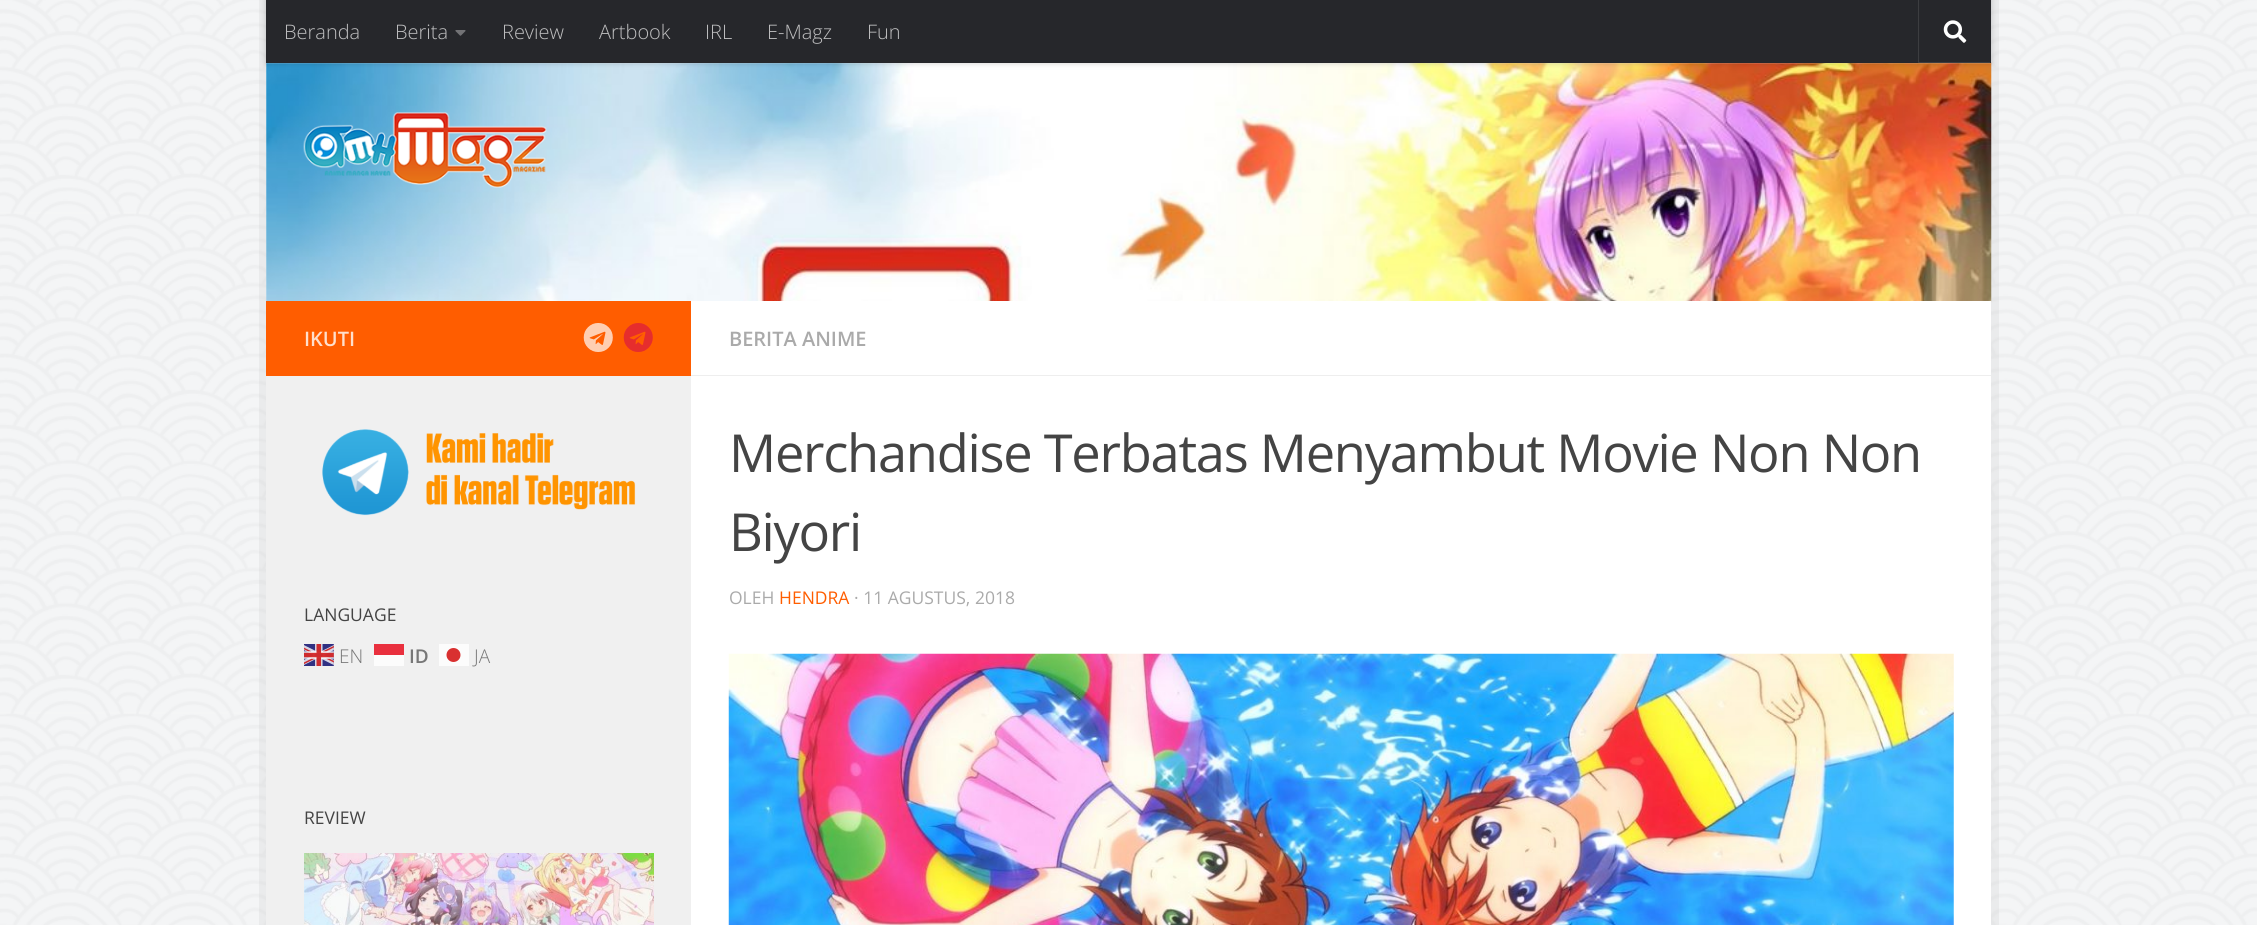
import math
import cairo

surface = cairo.ImageSurface(cairo.FORMAT_RGB24, 2257, 925)
cr = cairo.Context(surface)
options = cairo.FontOptions()
options.set_hint_metrics(cairo.HINT_METRICS_OFF)
options.set_hint_style(cairo.HINT_STYLE_NONE)
cr.set_font_options(options)
cr.set_miter_limit(4)


def rgb(code):
    cr.set_source_rgb(*(v / 255 for v in bytes.fromhex(code[-6:])))


def tracked(x, y, s, letter, word):
    cr.move_to(x, y)
    for ch in s:
        cr.show_text(ch)
        cr.rel_move_to(letter + word * (ch == ' '), 0)


def rrect(x, y, w, h, r):
    cr.new_sub_path()
    for i, (u, v) in enumerate([(x + w - r, y + h - r), (x + r, y + h - r), (x + r, y + r), (x + w - r, y + r)]):
        cr.arc(u, v, r, i * math.pi / 2, (i + 1) * math.pi / 2)
    cr.close_path()


def soft_shadow(x, y, w, h, r, blur, alpha):
    cr.push_group_with_content(cairo.CONTENT_ALPHA)
    cr.set_operator(cairo.OPERATOR_SOURCE)
    for i in range(15, -16, -2):
        e = blur * i / 6
        if min(w, h) + 2 * e > 0:
            cr.set_source_rgba(0, 0, 0, alpha * math.erfc((i - 1) / 8.5) / 2)
            rrect(x - e, y - e, w + 2 * e, h + 2 * e, max(0, min(r + e + blur * .6, min(w, h) / 2 + e)))
            cr.fill()
    cr.mask(cr.pop_group())


def image(path, x, y, w, h):
    cr.save()
    cr.set_source_surface(cairo.ImageSurface.create_from_png(path), x, y)
    cr.rectangle(x, y, w, h)
    cr.fill()
    cr.restore()


rgb("#ffffff")
cr.paint()
image("img/1.png", 0, 0, 2257, 925)
cr.set_source_rgba(0, 0, 0, 0.04)
cr.rectangle(259, 0, 7, 925)
cr.fill()
cr.rectangle(1991, 0, 8, 925)
cr.fill()
image("img/4.png", 266, 62, 1726, 240)
cr.set_source_rgba(1, 1, 1, 0.15)
cr.new_path()
cr.move_to(266, 1)
cr.line_to(266, 64)
cr.line_to(1991, 64)
cr.line_to(1991, 62)
cr.line_to(266, 62)
cr.close_path()
cr.fill()
rgb("#000000")
soft_shadow(266, 0, 1725, 63, 0, 3, 0.2)
rgb("#26272b")
cr.rectangle(266, 0, 1725, 63)
cr.fill()
image("img/2.png", 455, 30, 11, 6)
rgb("#3c3d40")
cr.new_path()
cr.move_to(1918, 0)
cr.line_to(1918, 63)
cr.line_to(1990, 63)
cr.line_to(1990, 62)
cr.line_to(1919, 62)
cr.line_to(1919, 0)
cr.close_path()
cr.fill()
image("img/3.png", 1943, 20, 24, 23)
image("img/5.png", 303, 112, 244, 76)
rgb("#ffffff")
cr.rectangle(691, 301, 1300, 624)
cr.fill()
rgb("#ff5d00")
cr.rectangle(266, 301, 425, 75)
cr.fill()
image("img/6.png", 583, 323, 30, 29)
image("img/7.png", 623, 323, 30, 29)
rgb("#f0f0f0")
cr.rectangle(266, 376, 425, 549)
cr.fill()
image("img/8.png", 322, 429, 314, 87)
image("img/9.png", 304, 644, 30, 22)
for x, y, w, h, color in [
    (374, 644, 30, 11, "#e9303e"),
    (374, 655, 30, 11, "#fcfcfc"),
    (439, 644, 30, 22, "#fcfcfc"),
]:
    rgb(color)
    cr.rectangle(x, y, w, h)
    cr.fill()
rgb("#d93030")
cr.arc(453.5, 655, 7, 0, 2 * math.pi)
cr.fill()
image("img/10.png", 304, 853, 350, 72)
rgb("#eeeeee")
cr.rectangle(691, 375, 1300, 1)
cr.fill()
image("img/11.png", 728, 653, 1226, 272)
cr.select_font_face("Open Sans Light")
cr.set_font_size(20)
rgb("#bebebf")
for x, y, s in [
    (284, 39, "Beranda"),
    (395, 39, "Berita"),
    (502, 39, "Review"),
    (599, 39, "Artbook"),
    (705, 39, "IRL"),
    (767, 39, "E-Magz"),
    (867, 39, "Fun"),
]:
    cr.move_to(x, y)
    cr.show_text(s)
cr.select_font_face("Open Sans SemiBold")
rgb("#ffdfcc")
cr.move_to(304, 346)
cr.show_text("IKUTI")
cr.select_font_face("Open Sans")
cr.set_font_size(17.5)
rgb("#444444")
cr.move_to(304, 621)
cr.show_text("LANGUAGE")
cr.select_font_face("Open Sans Light")
cr.set_font_size(19)
rgb("#777777")
cr.move_to(339, 663)
cr.show_text("EN")
cr.select_font_face("Open Sans SemiBold")
cr.move_to(409, 663)
cr.show_text("ID")
cr.select_font_face("Open Sans Light")
cr.move_to(474, 663)
cr.show_text("JA")
cr.select_font_face("Open Sans")
cr.set_font_size(17.5)
rgb("#444444")
cr.move_to(304, 824)
cr.show_text("REVIEW")
cr.select_font_face("Open Sans SemiBold")
cr.set_font_size(20)
rgb("#aaaaaa")
cr.move_to(729, 346)
cr.show_text("BERITA ANIME")
cr.select_font_face("Open Sans")
cr.set_font_size(52.4)
rgb("#444444")
tracked(729, 472, "Merchandise Terbatas Menyambut Movie Non Non", -1.25, 0)
tracked(729, 551, "Biyori", -1.25, 0)
cr.set_font_size(17.5)
rgb("#aaaaaa")
cr.move_to(729, 604)
cr.show_text("OLEH")
rgb("#ff5d00")
cr.move_to(779, 604)
cr.show_text("HENDRA")
rgb("#aaaaaa")
cr.move_to(854, 604)
cr.show_text("· 11 AGUSTUS, 2018")
surface.write_to_png("page.png")
